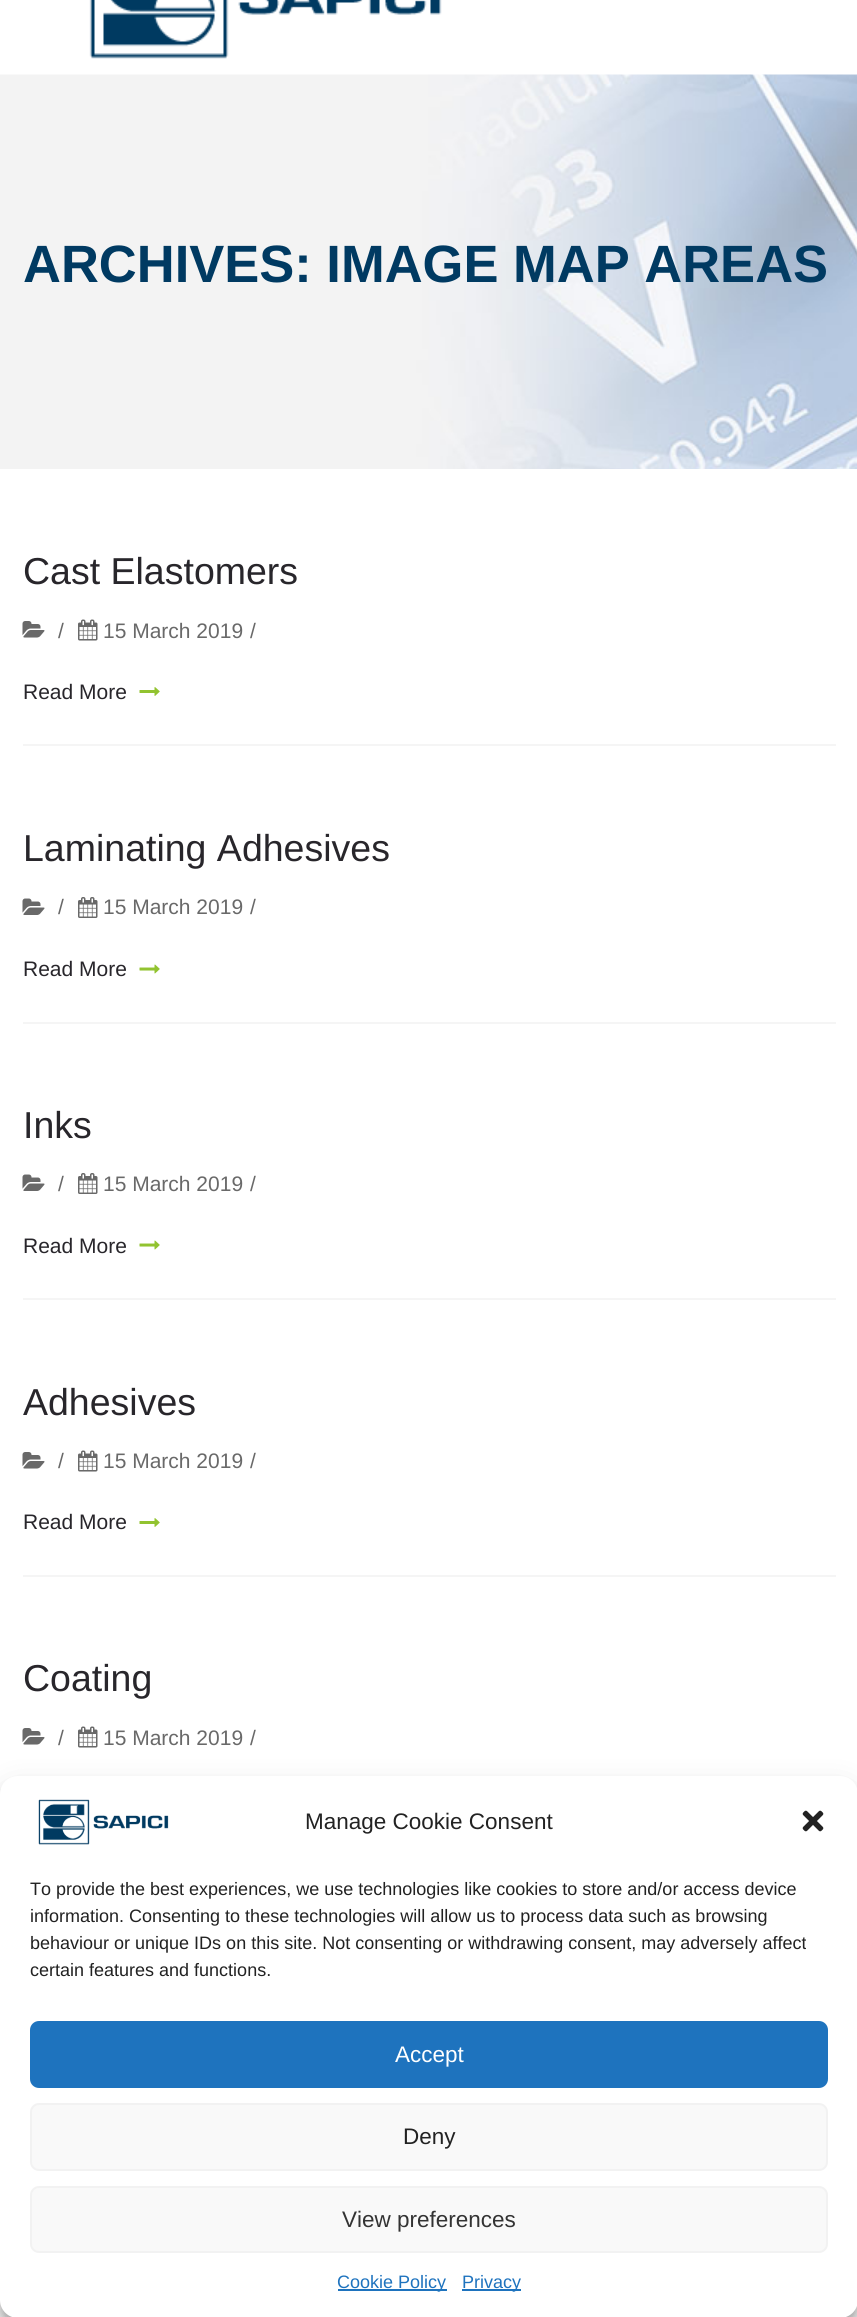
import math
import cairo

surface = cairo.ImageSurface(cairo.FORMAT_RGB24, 857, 2317)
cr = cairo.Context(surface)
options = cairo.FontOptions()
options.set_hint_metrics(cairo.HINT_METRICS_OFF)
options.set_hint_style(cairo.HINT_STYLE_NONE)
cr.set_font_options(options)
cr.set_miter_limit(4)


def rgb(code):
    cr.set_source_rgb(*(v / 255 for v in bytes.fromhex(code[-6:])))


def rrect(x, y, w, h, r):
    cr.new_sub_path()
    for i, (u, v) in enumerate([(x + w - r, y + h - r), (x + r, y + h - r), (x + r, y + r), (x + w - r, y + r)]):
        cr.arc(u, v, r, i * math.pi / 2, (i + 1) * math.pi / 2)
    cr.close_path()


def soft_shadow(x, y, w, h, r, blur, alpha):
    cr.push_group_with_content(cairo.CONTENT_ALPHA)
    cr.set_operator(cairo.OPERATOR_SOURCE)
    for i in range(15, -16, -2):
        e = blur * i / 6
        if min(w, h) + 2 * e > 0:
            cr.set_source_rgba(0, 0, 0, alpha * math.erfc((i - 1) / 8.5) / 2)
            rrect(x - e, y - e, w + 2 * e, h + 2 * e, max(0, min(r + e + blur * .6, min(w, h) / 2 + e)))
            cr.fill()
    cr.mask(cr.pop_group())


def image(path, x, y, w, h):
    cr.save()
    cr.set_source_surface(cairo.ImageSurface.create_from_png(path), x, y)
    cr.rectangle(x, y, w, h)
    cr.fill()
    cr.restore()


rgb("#ffffff")
cr.paint()
image("img/1.png", 89, 0, 353, 59)
image("img/2.png", 0, 74, 857, 395)
rgb("#f5f5f5")
cr.rectangle(23, 744, 813, 2)
cr.fill()
image("img/3.png", 22, 621, 23, 17)
image("img/4.png", 78, 619, 20, 22)
image("img/5.png", 139, 687, 21, 9)
cr.rectangle(23, 1022, 813, 2)
cr.fill()
image("img/6.png", 22, 898, 23, 17)
image("img/7.png", 78, 897, 20, 21)
image("img/8.png", 139, 964, 21, 10)
cr.rectangle(23, 1298, 813, 2)
cr.fill()
image("img/6.png", 22, 1174, 23, 17)
image("img/7.png", 78, 1173, 20, 21)
image("img/8.png", 139, 1240, 21, 10)
cr.rectangle(23, 1575, 813, 2)
cr.fill()
image("img/3.png", 22, 1452, 23, 17)
image("img/4.png", 78, 1450, 20, 22)
image("img/5.png", 139, 1518, 21, 9)
image("img/3.png", 22, 1728, 23, 17)
image("img/4.png", 78, 1726, 20, 22)
rgb("#000000")
soft_shadow(0, 1785, 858, 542, 18, 4.5, 0.23)
soft_shadow(0, 1791, 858, 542, 18, 15, 0.19)
rgb("#ffffff")
rrect(0, 1776, 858, 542, 18)
cr.fill()
image("img/9.png", 38, 1799, 131, 46)
image("img/10.png", 802, 1810, 22, 22)
rgb("#1e73be")
rrect(31, 2022, 796, 65, 8)
cr.fill_preserve()
cr.stroke()
rgb("#f9f9f9")
rrect(31, 2104, 796, 66, 8)
cr.fill_preserve()
rgb("#f2f2f2")
cr.stroke()
rgb("#f9f9f9")
rrect(31, 2187, 796, 65, 8)
cr.fill_preserve()
rgb("#f2f2f2")
cr.stroke()
rgb("#1e73be")
cr.rectangle(338, 2289, 109, 2)
cr.fill()
cr.rectangle(462, 2289, 59, 2)
cr.fill()
cr.select_font_face("Liberation Sans", cairo.FONT_SLANT_NORMAL, cairo.FONT_WEIGHT_BOLD)
cr.set_font_size(52.5)
rgb("#003a62")
cr.move_to(23, 282)
cr.show_text("ARCHIVES: IMAGE MAP AREAS")
cr.select_font_face("Liberation Sans")
cr.set_font_size(37.5)
rgb("#28262b")
cr.move_to(23, 584)
cr.show_text("Cast Elastomers")
cr.set_font_size(21)
rgb("#696969")
for x, y, s in [
    (58, 638, "/"),
    (103, 638, "15 March 2019"),
    (250, 638, "/"),
]:
    cr.move_to(x, y)
    cr.show_text(s)
rgb("#28262b")
cr.move_to(23, 699)
cr.show_text("Read More")
cr.set_font_size(37.5)
cr.move_to(23, 861)
cr.show_text("Laminating Adhesives")
cr.set_font_size(21)
rgb("#696969")
for x, y, s in [
    (58, 914, "/"),
    (103, 914, "15 March 2019"),
    (250, 914, "/"),
]:
    cr.move_to(x, y)
    cr.show_text(s)
rgb("#28262b")
cr.move_to(23, 976)
cr.show_text("Read More")
cr.set_font_size(37.5)
cr.move_to(23, 1138)
cr.show_text("Inks")
cr.set_font_size(21)
rgb("#696969")
for x, y, s in [
    (58, 1191, "/"),
    (103, 1191, "15 March 2019"),
    (250, 1191, "/"),
]:
    cr.move_to(x, y)
    cr.show_text(s)
rgb("#28262b")
cr.move_to(23, 1253)
cr.show_text("Read More")
cr.set_font_size(37.5)
cr.move_to(23, 1415)
cr.show_text("Adhesives")
cr.set_font_size(21)
rgb("#696969")
for x, y, s in [
    (58, 1468, "/"),
    (103, 1468, "15 March 2019"),
    (250, 1468, "/"),
]:
    cr.move_to(x, y)
    cr.show_text(s)
rgb("#28262b")
cr.move_to(23, 1529)
cr.show_text("Read More")
cr.set_font_size(37.5)
cr.move_to(23, 1691)
cr.show_text("Coating")
cr.set_font_size(21)
rgb("#696969")
for x, y, s in [
    (58, 1745, "/"),
    (103, 1745, "15 March 2019"),
    (250, 1745, "/"),
]:
    cr.move_to(x, y)
    cr.show_text(s)
cr.set_font_size(22.5)
rgb("#222222")
cr.move_to(305, 1829)
cr.show_text("Manage Cookie Consent")
cr.set_font_size(18)
for x, y, s in [
    (30, 1895, "To provide the best experiences, we use technologies like cookies to store and/or access device"),
    (30, 1922, "information. Consenting to these technologies will allow us to process data such as browsing"),
    (30, 1949, "behaviour or unique IDs on this site. Not consenting or withdrawing consent, may adversely affect"),
    (30, 1976, "certain features and functions."),
]:
    cr.move_to(x, y)
    cr.show_text(s)
cr.set_font_size(22.5)
rgb("#ffffff")
cr.move_to(395, 2062)
cr.show_text("Accept")
rgb("#222222")
cr.move_to(403, 2144)
cr.show_text("Deny")
rgb("#333333")
cr.move_to(342, 2227)
cr.show_text("View preferences")
cr.set_font_size(18)
rgb("#1e73be")
cr.move_to(337, 2288)
cr.show_text("Cookie Policy")
cr.move_to(462, 2288)
cr.show_text("Privacy")
surface.write_to_png("page.png")
